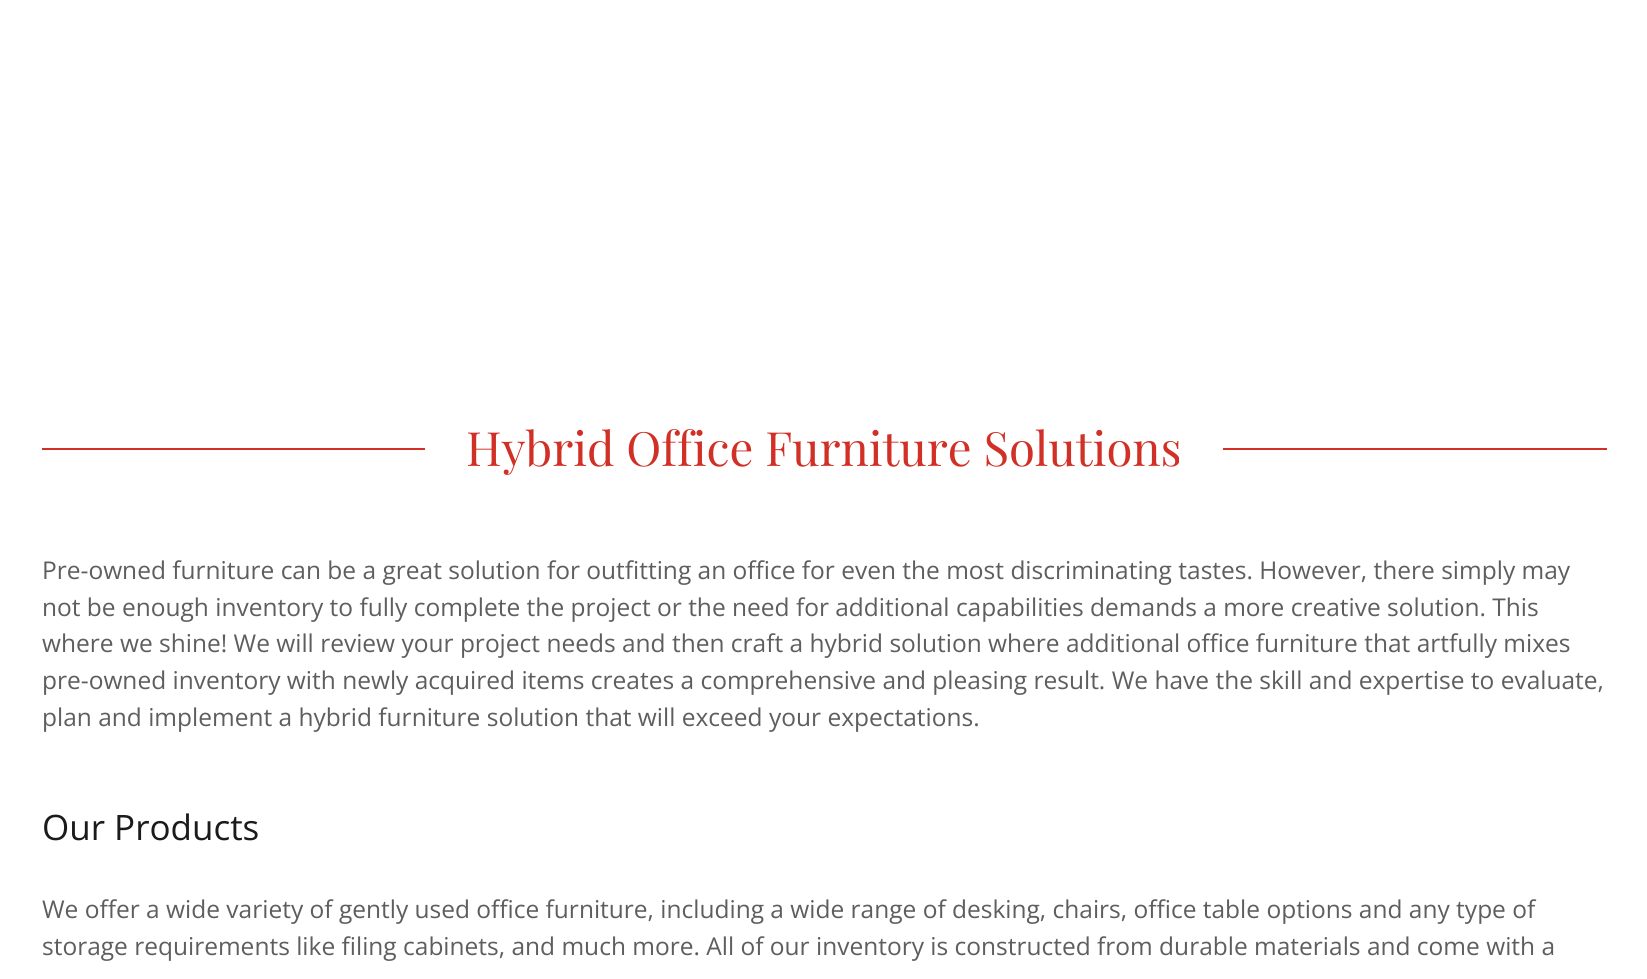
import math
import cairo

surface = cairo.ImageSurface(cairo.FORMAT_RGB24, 1647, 979)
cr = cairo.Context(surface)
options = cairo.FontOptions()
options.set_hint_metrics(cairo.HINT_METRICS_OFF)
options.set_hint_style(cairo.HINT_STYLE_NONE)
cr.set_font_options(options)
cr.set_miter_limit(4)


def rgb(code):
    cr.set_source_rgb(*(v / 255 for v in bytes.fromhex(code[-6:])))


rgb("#ffffff")
cr.paint()
rgb("#d13026")
cr.rectangle(42, 448, 383, 2)
cr.fill()
cr.rectangle(1223, 448, 384, 2)
cr.fill()
cr.select_font_face("Playfair Display")
cr.set_font_size(47.25)
cr.move_to(466, 466)
cr.show_text("Hybrid Office Furniture Solutions")
cr.select_font_face("Open Sans")
cr.set_font_size(24.5)
rgb("#5e5e5e")
for x, y, s in [
    (42, 579, "Pre-owned furniture can be a great solution for outfitting an office for even the most discriminating tastes. However, there simply may"),
    (42, 616, "not be enough inventory to fully complete the project or the need for additional capabilities demands a more creative solution. This"),
    (42, 652, "where we shine! We will review your project needs and then craft a hybrid solution where additional office furniture that artfully mixes"),
    (42, 689, "pre-owned inventory with newly acquired items creates a comprehensive and pleasing result. We have the skill and expertise to evaluate,"),
    (42, 726, "plan and implement a hybrid furniture solution that will exceed your expectations."),
]:
    cr.move_to(x, y)
    cr.show_text(s)
cr.set_font_size(35)
rgb("#1b1b1b")
cr.move_to(42, 840)
cr.show_text("Our Products")
cr.set_font_size(24.5)
rgb("#5e5e5e")
cr.move_to(42, 918)
cr.show_text("We offer a wide variety of gently used office furniture, including a wide range of desking, chairs, office table options and any type of")
cr.move_to(42, 955)
cr.show_text("storage requirements like filing cabinets, and much more. All of our inventory is constructed from durable materials and come with a")
surface.write_to_png("page.png")
